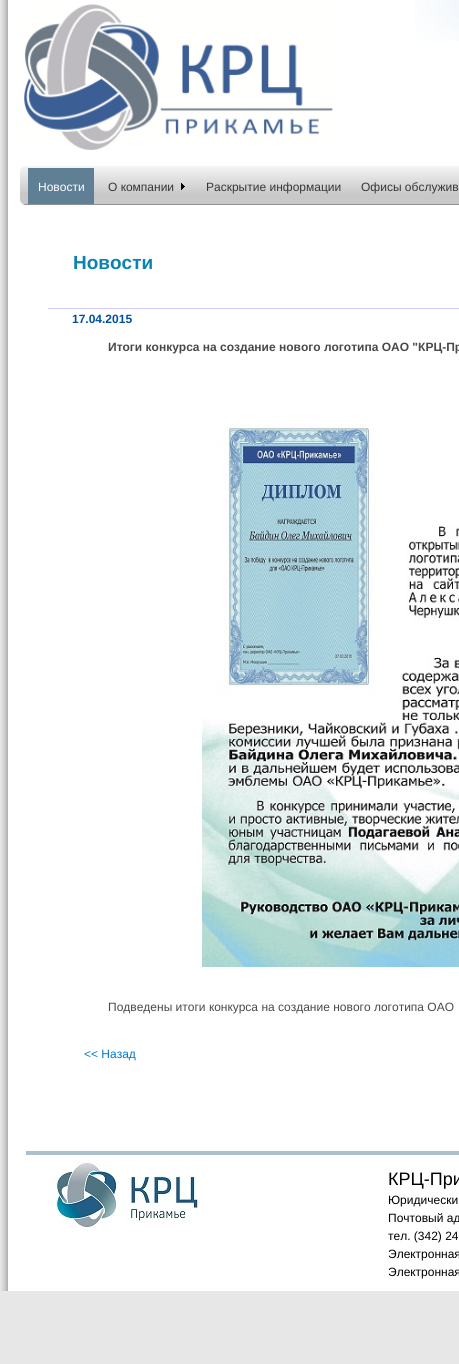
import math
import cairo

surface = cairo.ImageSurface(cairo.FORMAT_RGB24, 459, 1364)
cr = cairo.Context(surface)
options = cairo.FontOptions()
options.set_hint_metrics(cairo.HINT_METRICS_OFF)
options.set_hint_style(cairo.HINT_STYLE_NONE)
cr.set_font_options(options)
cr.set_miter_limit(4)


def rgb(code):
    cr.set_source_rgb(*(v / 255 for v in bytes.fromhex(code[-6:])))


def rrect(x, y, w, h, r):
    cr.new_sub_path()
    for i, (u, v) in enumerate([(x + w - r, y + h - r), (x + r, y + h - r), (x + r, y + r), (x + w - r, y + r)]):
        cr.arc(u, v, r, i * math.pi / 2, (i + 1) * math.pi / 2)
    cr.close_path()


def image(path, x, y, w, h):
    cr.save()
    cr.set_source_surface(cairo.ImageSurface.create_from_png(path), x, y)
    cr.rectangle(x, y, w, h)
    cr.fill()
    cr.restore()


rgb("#e7e7e7")
cr.paint()
rgb("#ffffff")
cr.rectangle(8, 0, 451, 1291)
cr.fill()
image("img/1.png", 0, 0, 8, 1291)
image("img/2.png", 415, 0, 44, 41)
image("img/3.png", 24, 4, 309, 146)
gradient = cairo.LinearGradient(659, 166, 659, 205)
gradient.add_color_stop_rgba(0, 0.957, 0.957, 0.957, 1)
gradient.add_color_stop_rgba(0.73, 0.784, 0.784, 0.784, 1)
gradient.add_color_stop_rgba(0.97, 0.784, 0.784, 0.784, 1)
gradient.add_color_stop_rgba(0.99, 0.529, 0.529, 0.529, 1)
gradient.add_color_stop_rgba(1, 0.914, 0.914, 0.914, 1)
cr.set_source(gradient)
rrect(20, 166, 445, 39, 6)
cr.fill()
rgb("#5e7f94")
cr.rectangle(28, 168, 66, 36)
cr.fill()
image("img/4.png", 181, 183, 4, 7)
rgb("#ccccff")
cr.rectangle(48, 308, 411, 1)
cr.fill()
image("img/5.png", 202, 424, 257, 543)
rgb("#acc0cc")
cr.rectangle(26, 1151, 433, 4)
cr.fill()
image("img/6.png", 53, 1160, 146, 70)
cr.select_font_face("Liberation Sans")
cr.set_font_size(12)
rgb("#ffffff")
cr.move_to(38, 191)
cr.show_text("Новости")
rgb("#373737")
for x, y, s in [
    (108, 191, "О компании"),
    (206, 191, "Раскрытие информации"),
    (361, 191, "Офисы обслужив"),
]:
    cr.move_to(x, y)
    cr.show_text(s)
cr.select_font_face("Liberation Sans", cairo.FONT_SLANT_NORMAL, cairo.FONT_WEIGHT_BOLD)
cr.set_font_size(19)
rgb("#0a83b0")
cr.move_to(73, 269)
cr.show_text("Новости")
cr.set_font_size(12)
rgb("#0050a0")
cr.move_to(72, 323)
cr.show_text("17.04.2015")
rgb("#494949")
cr.move_to(108, 351)
cr.show_text("Итоги конкурса на создание нового логотипа ОАО \"КРЦ-Пр")
cr.select_font_face("Liberation Sans")
cr.move_to(108, 1011)
cr.show_text("Подведены итоги конкурса на создание нового логотипа ОАО")
rgb("#027ac6")
cr.move_to(84, 1058)
cr.show_text("<< Назад")
cr.set_font_size(18)
rgb("#000000")
cr.move_to(388, 1185)
cr.show_text("КРЦ-При")
cr.set_font_size(12)
for x, y, s in [
    (388, 1204, "Юридически"),
    (388, 1222, "Почтовый ад"),
    (388, 1240, "тел. (342) 24"),
    (388, 1258, "Электронная"),
    (388, 1276, "Электронная"),
]:
    cr.move_to(x, y)
    cr.show_text(s)
surface.write_to_png("page.png")
